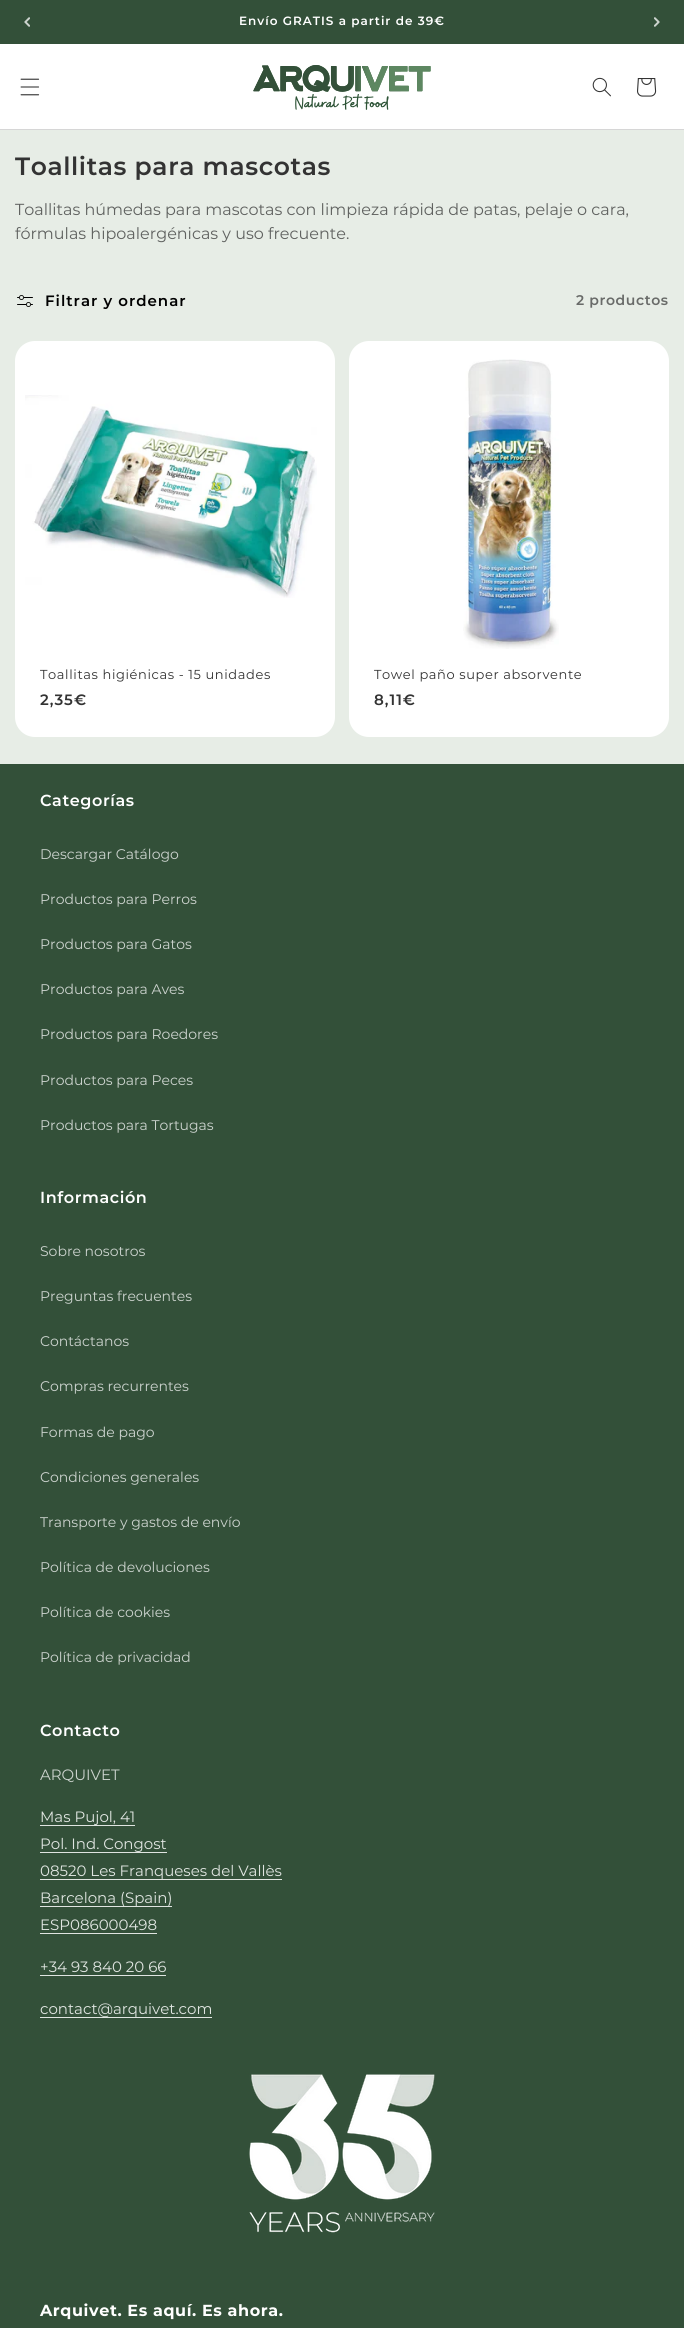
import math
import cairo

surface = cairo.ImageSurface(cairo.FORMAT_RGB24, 684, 2328)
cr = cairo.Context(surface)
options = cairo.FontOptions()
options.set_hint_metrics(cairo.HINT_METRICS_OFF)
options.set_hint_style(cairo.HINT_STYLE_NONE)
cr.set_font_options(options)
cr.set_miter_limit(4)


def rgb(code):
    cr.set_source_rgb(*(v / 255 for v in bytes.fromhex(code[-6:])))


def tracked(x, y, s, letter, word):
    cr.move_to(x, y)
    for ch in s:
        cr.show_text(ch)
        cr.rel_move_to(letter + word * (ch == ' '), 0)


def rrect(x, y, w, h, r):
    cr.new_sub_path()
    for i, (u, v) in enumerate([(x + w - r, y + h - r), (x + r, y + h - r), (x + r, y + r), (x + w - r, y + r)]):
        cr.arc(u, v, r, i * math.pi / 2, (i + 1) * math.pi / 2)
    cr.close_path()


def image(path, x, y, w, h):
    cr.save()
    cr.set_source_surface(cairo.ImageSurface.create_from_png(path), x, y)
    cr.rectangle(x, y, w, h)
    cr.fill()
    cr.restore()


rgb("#ffffff")
cr.paint()
rgb("#335039")
cr.rectangle(0, 0, 684, 44)
cr.fill()
image("img/1.png", 24, 17, 6, 10)
image("img/2.png", 654, 17, 6, 10)
rgb("#d6d6d6")
cr.rectangle(0, 129, 684, 1)
cr.fill()
image("img/3.png", 20, 78, 20, 18)
image("img/4.png", 253, 65, 178, 45)
image("img/5.png", 592, 77, 19, 20)
image("img/6.png", 637, 78, 20, 19)
rgb("#e7ede6")
cr.rectangle(0, 130, 684, 634)
cr.fill()
image("img/7.png", 17, 295, 16, 12)
rgb("#ffffff")
rrect(15, 341, 320, 396, 20)
cr.fill()
image("img/8.png", 25, 395, 292, 203)
rrect(349, 341, 320, 396, 20)
cr.fill()
image("img/9.png", 463, 359, 96, 290)
for x, y, w, h, color in [
    (0, 764, 684, 1564, "#335039"),
    (40, 1825, 95, 1, "#e0e5e1"),
    (40, 1852, 127, 1, "#e0e5e1"),
    (40, 1879, 242, 1, "#e0e5e1"),
    (40, 1906, 132, 1, "#e0e5e1"),
    (40, 1933, 117, 1, "#e0e5e1"),
    (40, 1975, 126, 1, "#e0e5e1"),
    (40, 2017, 172, 1, "#e0e5e1"),
]:
    rgb(color)
    cr.rectangle(x, y, w, h)
    cr.fill()
image("img/10.png", 249, 2074, 186, 159)
cr.select_font_face("Montserrat SemiBold")
cr.set_font_size(12)
rgb("#ffffff")
tracked(239, 25, "Envío GRATIS a partir de 39€", 1, 0)
cr.set_font_size(25)
rgb("#333333")
tracked(15, 175, "Toallitas para mascotas", 0.6, 0)
cr.select_font_face("Montserrat")
cr.set_font_size(16)
rgb("#606260")
cr.move_to(15, 215)
cr.show_text("Toallitas húmedas para mascotas con limpieza rápida de patas, pelaje o cara,")
cr.move_to(15, 239)
cr.show_text("fórmulas hipoalergénicas y uso frecuente.")
cr.select_font_face("Montserrat SemiBold")
cr.set_font_size(15)
rgb("#000000")
tracked(45, 306, "Filtrar y ordenar", 1, 0)
cr.set_font_size(14)
rgb("#696b69")
tracked(576, 305, "2 productos", 0.6, 0)
cr.select_font_face("Montserrat")
cr.set_font_size(13)
rgb("#333333")
tracked(40, 679, "Toallitas higiénicas - 15 unidades", 0.6, 0)
cr.select_font_face("Montserrat SemiBold")
cr.set_font_size(15)
tracked(40, 705, "2,35€", 1, 0)
cr.select_font_face("Montserrat")
cr.set_font_size(13)
tracked(374, 679, "Towel paño super absorvente", 0.6, 0)
cr.select_font_face("Montserrat SemiBold")
cr.set_font_size(15)
tracked(374, 705, "8,11€", 1, 0)
cr.set_font_size(16)
rgb("#ffffff")
tracked(40, 806, "Categorías", 0.6, 0)
cr.select_font_face("Montserrat")
cr.set_font_size(14)
rgb("#ccd3ce")
for x, y, s in [
    (40, 859, "Descargar Catálogo"),
    (40, 904, "Productos para Perros"),
    (40, 949, "Productos para Gatos"),
    (40, 994, "Productos para Aves"),
    (40, 1039, "Productos para Roedores"),
    (40, 1085, "Productos para Peces"),
    (40, 1130, "Productos para Tortugas"),
]:
    cr.move_to(x, y)
    cr.show_text(s)
cr.select_font_face("Montserrat SemiBold")
cr.set_font_size(16)
rgb("#ffffff")
tracked(40, 1203, "Información", 0.6, 0)
cr.select_font_face("Montserrat")
cr.set_font_size(14)
rgb("#ccd3ce")
for x, y, s in [
    (40, 1256, "Sobre nosotros"),
    (40, 1301, "Preguntas frecuentes"),
    (40, 1346, "Contáctanos"),
    (40, 1391, "Compras recurrentes"),
    (40, 1437, "Formas de pago"),
    (40, 1482, "Condiciones generales"),
    (40, 1527, "Transporte y gastos de envío"),
    (40, 1572, "Política de devoluciones"),
    (40, 1617, "Política de cookies"),
    (40, 1662, "Política de privacidad"),
]:
    cr.move_to(x, y)
    cr.show_text(s)
cr.select_font_face("Montserrat SemiBold")
cr.set_font_size(16)
rgb("#ffffff")
tracked(40, 1736, "Contacto", 0.6, 0)
cr.select_font_face("Montserrat")
cr.set_font_size(15)
rgb("#ccd3ce")
cr.move_to(40, 1780)
cr.show_text("ARQUIVET")
rgb("#e0e5e1")
for x, y, s in [
    (40, 1822, "Mas Pujol, 41"),
    (40, 1849, "Pol. Ind. Congost"),
    (40, 1876, "08520 Les Franqueses del Vallès"),
    (40, 1903, "Barcelona (Spain)"),
    (40, 1930, "ESP086000498"),
    (40, 1972, "+34 93 840 20 66"),
    (40, 2014, "contact@arquivet.com"),
]:
    cr.move_to(x, y)
    cr.show_text(s)
cr.select_font_face("Montserrat", cairo.FONT_SLANT_NORMAL, cairo.FONT_WEIGHT_BOLD)
cr.set_font_size(16)
rgb("#ffffff")
tracked(40, 2316, "Arquivet. Es aquí. Es ahora.", 0.6, 0)
surface.write_to_png("page.png")
